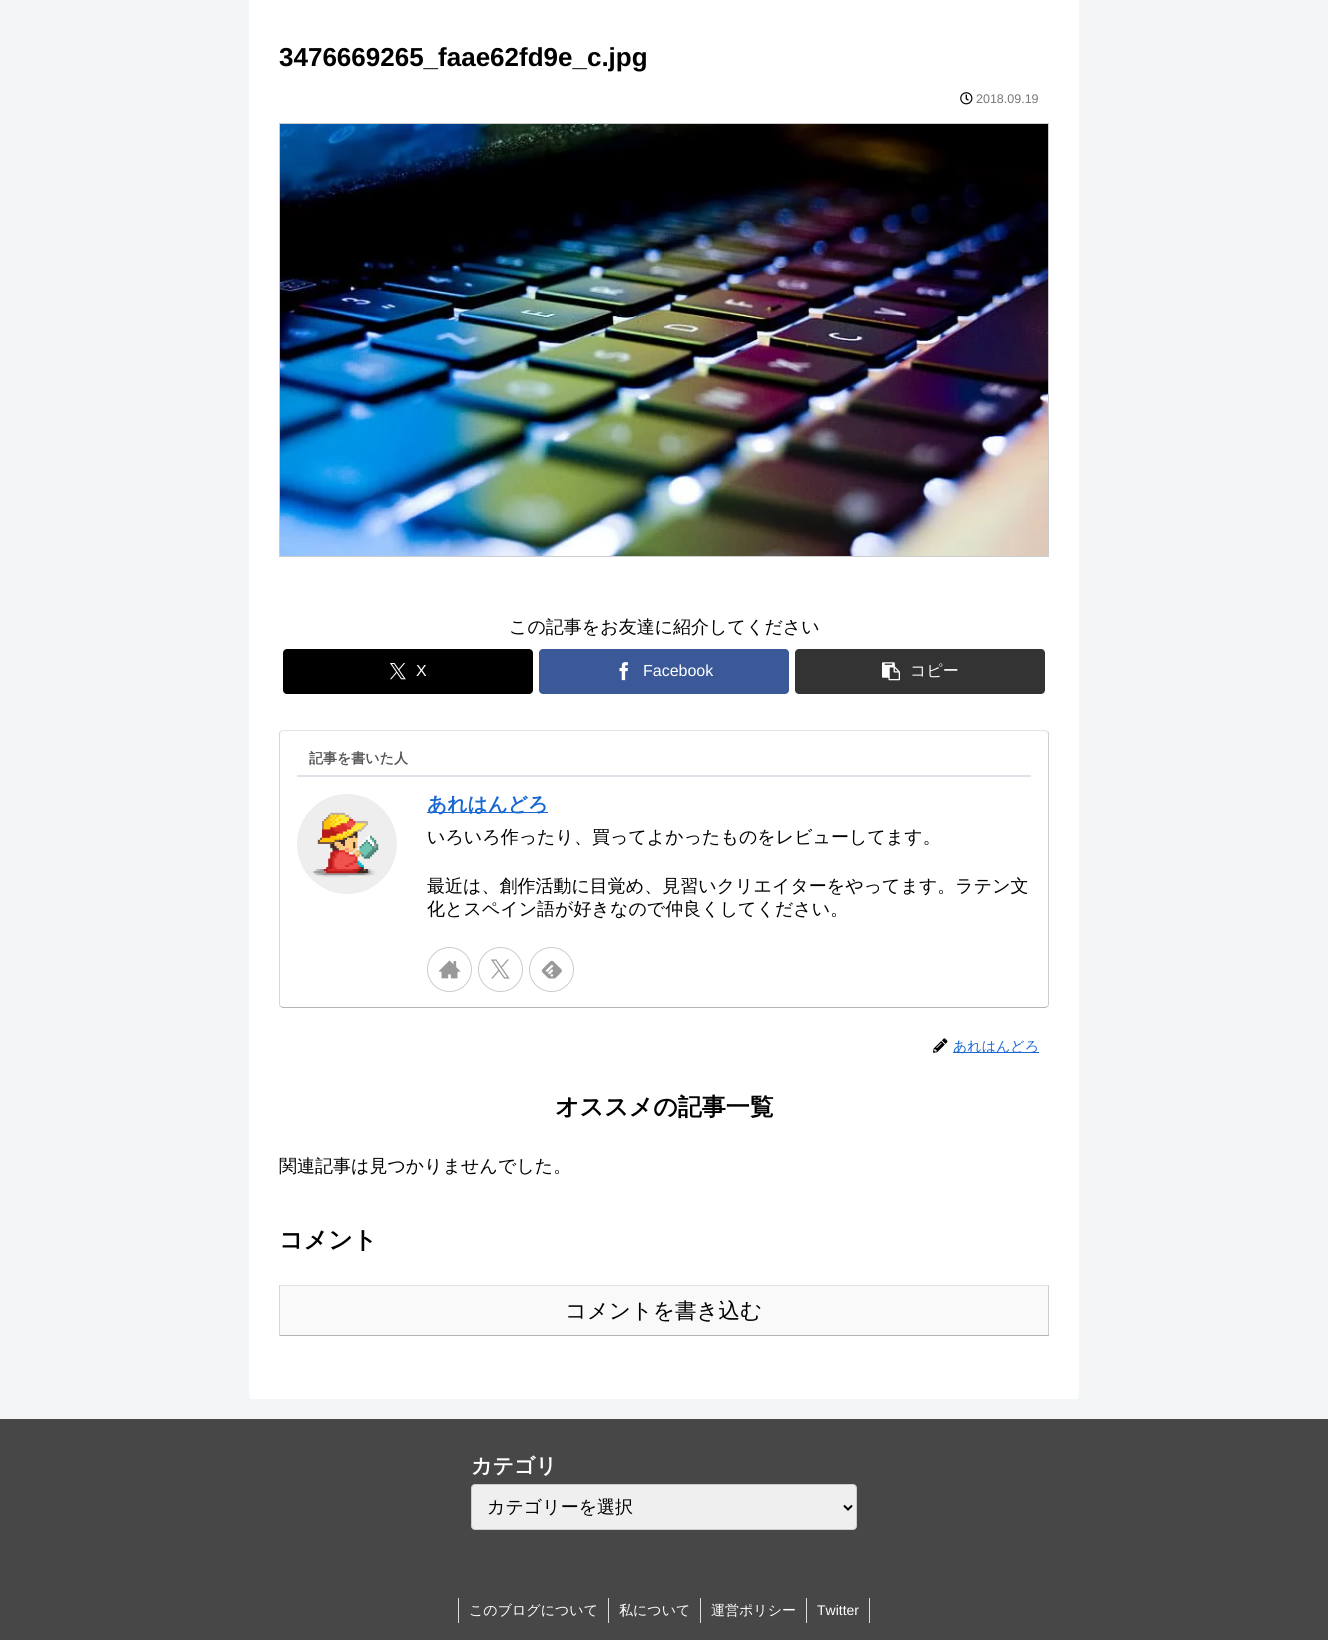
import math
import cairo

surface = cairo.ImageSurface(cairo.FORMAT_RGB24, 1328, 1640)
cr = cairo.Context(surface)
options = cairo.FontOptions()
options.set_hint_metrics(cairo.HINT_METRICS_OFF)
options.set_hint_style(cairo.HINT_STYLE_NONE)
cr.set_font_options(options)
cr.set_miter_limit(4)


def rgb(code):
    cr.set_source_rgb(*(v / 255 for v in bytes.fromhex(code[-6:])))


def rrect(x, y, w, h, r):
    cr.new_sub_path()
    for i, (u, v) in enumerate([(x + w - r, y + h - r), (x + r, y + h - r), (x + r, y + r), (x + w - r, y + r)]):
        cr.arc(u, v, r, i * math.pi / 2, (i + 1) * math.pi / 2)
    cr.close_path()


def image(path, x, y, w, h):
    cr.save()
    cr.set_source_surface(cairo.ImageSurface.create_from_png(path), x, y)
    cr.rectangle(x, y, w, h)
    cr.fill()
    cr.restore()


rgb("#f4f5f7")
cr.paint()
rgb("#ffffff")
rrect(249, -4, 830, 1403, 4)
cr.fill()
image("img/1.png", 960, 92, 13, 13)
cr.rectangle(279.5, 123.5, 769, 433)
rgb("#cccccc")
cr.set_line_width(1)
cr.stroke()
image("img/2.png", 280, 124, 768, 432)
rgb("#000000")
rrect(283, 649, 250, 45, 4)
cr.fill()
image("img/3.png", 390, 663, 16, 17)
rgb("#3b5998")
rrect(539, 649, 250, 45, 4)
cr.fill()
image("img/4.png", 619, 662, 9, 19)
rgb("#333333")
rrect(795, 649, 250, 45, 4)
cr.fill()
image("img/5.png", 882, 662, 18, 19)
cr.new_path()
cr.move_to(280.5, 731.5)
cr.line_to(283, 730.5)
cr.line_to(1045, 730.5)
cr.line_to(1047.5, 731.5)
rgb("#e3e3e3")
cr.stroke()
cr.new_path()
cr.move_to(1047.5, 731.5)
cr.curve_to(1048, 732, 1048.5, 733, 1048.5, 734)
cr.line_to(1048.5, 1004)
cr.curve_to(1048.5, 1005, 1048, 1006, 1047.5, 1006.5)
rgb("#cecece")
cr.stroke()
cr.new_path()
cr.move_to(1047.5, 1006.5)
cr.line_to(1045, 1007.5)
cr.line_to(283, 1007.5)
cr.line_to(280.5, 1006.5)
rgb("#b4b4b4")
cr.stroke()
cr.new_path()
cr.move_to(280.5, 1006.5)
cr.curve_to(280, 1006, 279.5, 1005, 279.5, 1004)
cr.line_to(279.5, 734)
cr.curve_to(279.5, 733, 280, 732, 280.5, 731.5)
rgb("#d6d6d6")
cr.stroke()
rgb("#dfe2e8")
cr.rectangle(297, 775, 734, 2)
cr.fill()
image("img/6.png", 297, 794, 100, 100)
rgb("#1967d2")
cr.rectangle(427, 812, 121, 1)
cr.fill()
cr.arc(449.5, 969.5, 22, 0, 2 * math.pi)
rgb("#cccccc")
cr.stroke()
image("img/7.png", 438, 960, 23, 19)
cr.arc(500.5, 969.5, 22, 0, 2 * math.pi)
cr.stroke()
image("img/8.png", 491, 959, 19, 20)
cr.arc(551.5, 969.5, 22, 0, 2 * math.pi)
cr.stroke()
image("img/9.png", 541, 960, 21, 19)
image("img/10.png", 933, 1038, 15, 15)
for x, y, w, h, color in [
    (953, 1052, 86, 1, "#1967d2"),
    (280, 1286, 768, 49, "#f9f9f9"),
    (279, 1285, 770, 1, "#e3e3e3"),
    (1048, 1285, 1, 51, "#cecece"),
    (279, 1335, 770, 1, "#b4b4b4"),
    (279, 1285, 1, 51, "#d6d6d6"),
    (0, 1419, 1328, 221, "#474747"),
]:
    rgb(color)
    cr.rectangle(x, y, w, h)
    cr.fill()
rgb("#efefef")
rrect(471.5, 1484.5, 385, 45, 3.5)
cr.fill_preserve()
rgb("#cccccc")
cr.stroke()
cr.new_path()
cr.move_to(844, 1505.5)
cr.line_to(848, 1509.5)
cr.line_to(852, 1505.5)
rgb("#000000")
cr.set_line_width(2)
cr.stroke()
for x, y, w, h, color in [
    (458, 1598, 1, 25, "#dddddd"),
    (608, 1598, 1, 25, "#dddddd"),
    (700, 1598, 1, 25, "#dddddd"),
    (869, 1598, 1, 25, "#dddddd"),
    (806, 1598, 1, 25, "#dddddd"),
]:
    rgb(color)
    cr.rectangle(x, y, w, h)
    cr.fill()
cr.select_font_face("Liberation Sans", cairo.FONT_SLANT_NORMAL, cairo.FONT_WEIGHT_BOLD)
cr.set_font_size(26)
rgb("#000000")
cr.move_to(279, 66)
cr.show_text("3476669265_faae62fd9e_c.jpg")
cr.select_font_face("Liberation Sans")
cr.set_font_size(12.5)
rgb("#777777")
cr.move_to(976, 103)
cr.show_text("2018.09.19")
cr.select_font_face("WenQuanYi Zen Hei Medium")
cr.set_font_size(18)
rgb("#000000")
cr.move_to(509, 633)
cr.show_text("この記事をお友達に紹介してください")
cr.select_font_face("Liberation Sans")
cr.set_font_size(16)
rgb("#ffffff")
cr.move_to(416, 676)
cr.show_text("X")
cr.move_to(643, 676)
cr.show_text("Facebook")
cr.select_font_face("WenQuanYi Zen Hei Medium")
cr.move_to(910, 676)
cr.show_text("コピー")
cr.select_font_face("WenQuanYi Zen Hei", cairo.FONT_SLANT_NORMAL, cairo.FONT_WEIGHT_BOLD)
cr.set_font_size(14)
rgb("#555555")
cr.move_to(309, 763)
cr.show_text("記事を書いた人")
cr.set_font_size(19.75)
rgb("#1967d2")
cr.move_to(427, 811)
cr.show_text("あれはんどろ")
cr.select_font_face("WenQuanYi Zen Hei Medium")
cr.set_font_size(18)
rgb("#000000")
for x, y, s in [
    (427, 843, "いろいろ作ったり、買ってよかったものをレビューしてます。"),
    (427, 892, "最近は、創作活動に目覚め、見習いクリエイターをやってます。ラテン文"),
    (427, 915, "化とスペイン語が好きなので仲良くしてください。"),
]:
    cr.move_to(x, y)
    cr.show_text(s)
cr.set_font_size(14)
rgb("#1967d2")
cr.move_to(953, 1051)
cr.show_text("あれはんどろ")
cr.select_font_face("WenQuanYi Zen Hei", cairo.FONT_SLANT_NORMAL, cairo.FONT_WEIGHT_BOLD)
cr.set_font_size(24)
rgb("#000000")
cr.move_to(555, 1115)
cr.show_text("オススメの記事一覧")
cr.select_font_face("WenQuanYi Zen Hei Medium")
cr.set_font_size(18)
cr.move_to(279, 1172)
cr.show_text("関連記事は見つかりませんでした。")
cr.select_font_face("WenQuanYi Zen Hei", cairo.FONT_SLANT_NORMAL, cairo.FONT_WEIGHT_BOLD)
cr.set_font_size(24)
cr.move_to(279, 1248)
cr.show_text("コメント")
cr.select_font_face("WenQuanYi Zen Hei Medium")
cr.set_font_size(21.5)
cr.move_to(565, 1318)
cr.show_text("コメントを書き込む")
cr.select_font_face("WenQuanYi Zen Hei", cairo.FONT_SLANT_NORMAL, cairo.FONT_WEIGHT_BOLD)
cr.set_font_size(21)
rgb("#ffffff")
cr.move_to(471, 1473)
cr.show_text("カテゴリ")
cr.select_font_face("WenQuanYi Zen Hei Medium")
cr.set_font_size(18)
rgb("#000000")
cr.move_to(487, 1513)
cr.show_text("カテゴリーを選択")
cr.set_font_size(14)
rgb("#ffffff")
for x, y, s in [
    (469, 1615, "このブログについて"),
    (619, 1615, "私について"),
    (711, 1615, "運営ポリシー"),
]:
    cr.move_to(x, y)
    cr.show_text(s)
cr.select_font_face("Liberation Sans")
cr.move_to(817, 1615)
cr.show_text("Twitter")
surface.write_to_png("page.png")
